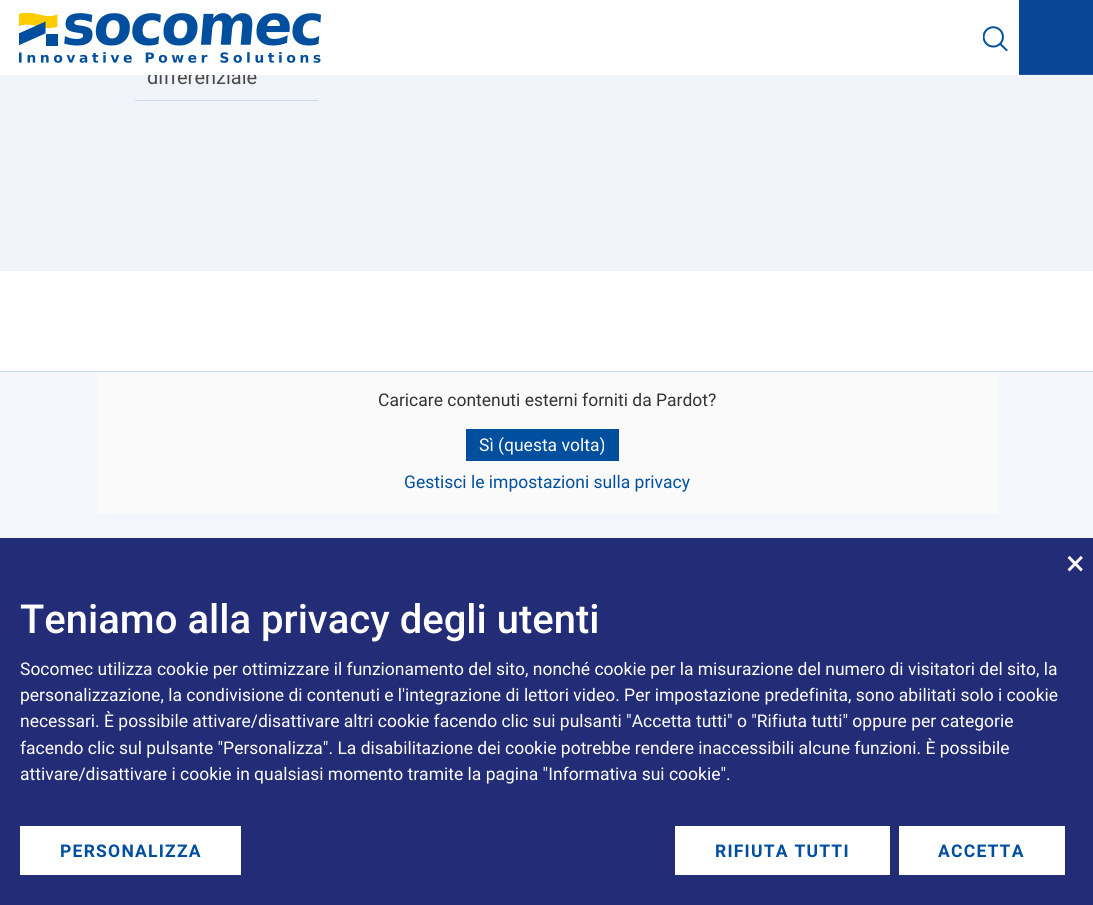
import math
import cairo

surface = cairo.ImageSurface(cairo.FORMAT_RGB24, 1093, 905)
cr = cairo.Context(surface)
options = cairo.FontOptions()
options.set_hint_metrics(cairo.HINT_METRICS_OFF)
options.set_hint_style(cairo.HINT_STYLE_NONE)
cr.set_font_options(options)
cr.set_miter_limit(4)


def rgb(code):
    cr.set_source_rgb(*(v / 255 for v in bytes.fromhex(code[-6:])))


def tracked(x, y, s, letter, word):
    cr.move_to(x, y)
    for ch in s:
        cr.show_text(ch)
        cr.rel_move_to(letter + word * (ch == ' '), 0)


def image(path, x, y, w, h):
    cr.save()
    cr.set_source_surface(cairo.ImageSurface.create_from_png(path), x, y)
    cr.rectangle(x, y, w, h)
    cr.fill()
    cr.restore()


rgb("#ffffff")
cr.paint()
rgb("#084796")
cr.rectangle(1019, 0, 74, 74)
cr.fill()
rgb("#2159a1")
cr.rectangle(1019, 74, 74, 1)
cr.fill()
image("img/1.png", 19, 13, 302, 50)
image("img/2.png", 983, 26, 25, 25)
for x, y, w, h, color in [
    (0, 75, 1093, 196, "#f0f3f9"),
    (135, 100, 183, 1, "#cfdaee"),
    (0, 372, 1093, 166, "#f3f7fb"),
    (0, 371, 1093, 1, "#cfdaee"),
    (98, 373, 900, 141, "#fafafa"),
    (466, 429, 153, 32, "#004f9f"),
    (0, 538, 1093, 367, "#232c77"),
    (20, 826, 221, 49, "#ffffff"),
    (675, 826, 215, 49, "#ffffff"),
    (899, 826, 166, 49, "#ffffff"),
]:
    rgb(color)
    cr.rectangle(x, y, w, h)
    cr.fill()
cr.select_font_face("Roboto")
cr.set_font_size(20)
rgb("#4a4a47")
cr.move_to(147, 84)
cr.show_text("differenziale")
rgb("#ffffff")
cr.rectangle(148, 68, 108, 7)
cr.fill()
cr.set_font_size(17.5)
rgb("#333333")
cr.move_to(378, 406)
cr.show_text("Caricare contenuti esterni forniti da Pardot?")
rgb("#ffffff")
cr.move_to(479, 451)
cr.show_text("Sì (questa volta)")
rgb("#004f9f")
cr.move_to(404, 488)
cr.show_text("Gestisci le impostazioni sulla privacy")
cr.set_font_size(35)
rgb("#ffffff")
cr.move_to(1066, 575)
cr.show_text("×")
cr.select_font_face("Roboto Medium")
cr.set_font_size(40)
cr.move_to(20, 633)
cr.show_text("Teniamo alla privacy degli utenti")
cr.select_font_face("Roboto")
cr.set_font_size(17.5)
for x, y, s in [
    (20, 675, "Socomec utilizza cookie per ottimizzare il funzionamento del sito, nonché cookie per la misurazione del numero di visitatori del sito, la"),
    (20, 701, "personalizzazione, la condivisione di contenuti e l'integrazione di lettori video. Per impostazione predefinita, sono abilitati solo i cookie"),
    (20, 727, "necessari. È possibile attivare/disattivare altri cookie facendo clic sui pulsanti \"Accetta tutti\" o \"Rifiuta tutti\" oppure per categorie"),
    (20, 754, "facendo clic sul pulsante \"Personalizza\". La disabilitazione dei cookie potrebbe rendere inaccessibili alcune funzioni. È possibile"),
    (20, 780, "attivare/disattivare i cookie in qualsiasi momento tramite la pagina \"Informativa sui cookie\"."),
]:
    cr.move_to(x, y)
    cr.show_text(s)
cr.select_font_face("Roboto", cairo.FONT_SLANT_NORMAL, cairo.FONT_WEIGHT_BOLD)
rgb("#004f9f")
for x, y, s in [
    (60, 857, "PERSONALIZZA"),
    (715, 857, "RIFIUTA TUTTI"),
    (938, 857, "ACCETTA"),
]:
    tracked(x, y, s, 1.25, 0)
surface.write_to_png("page.png")
